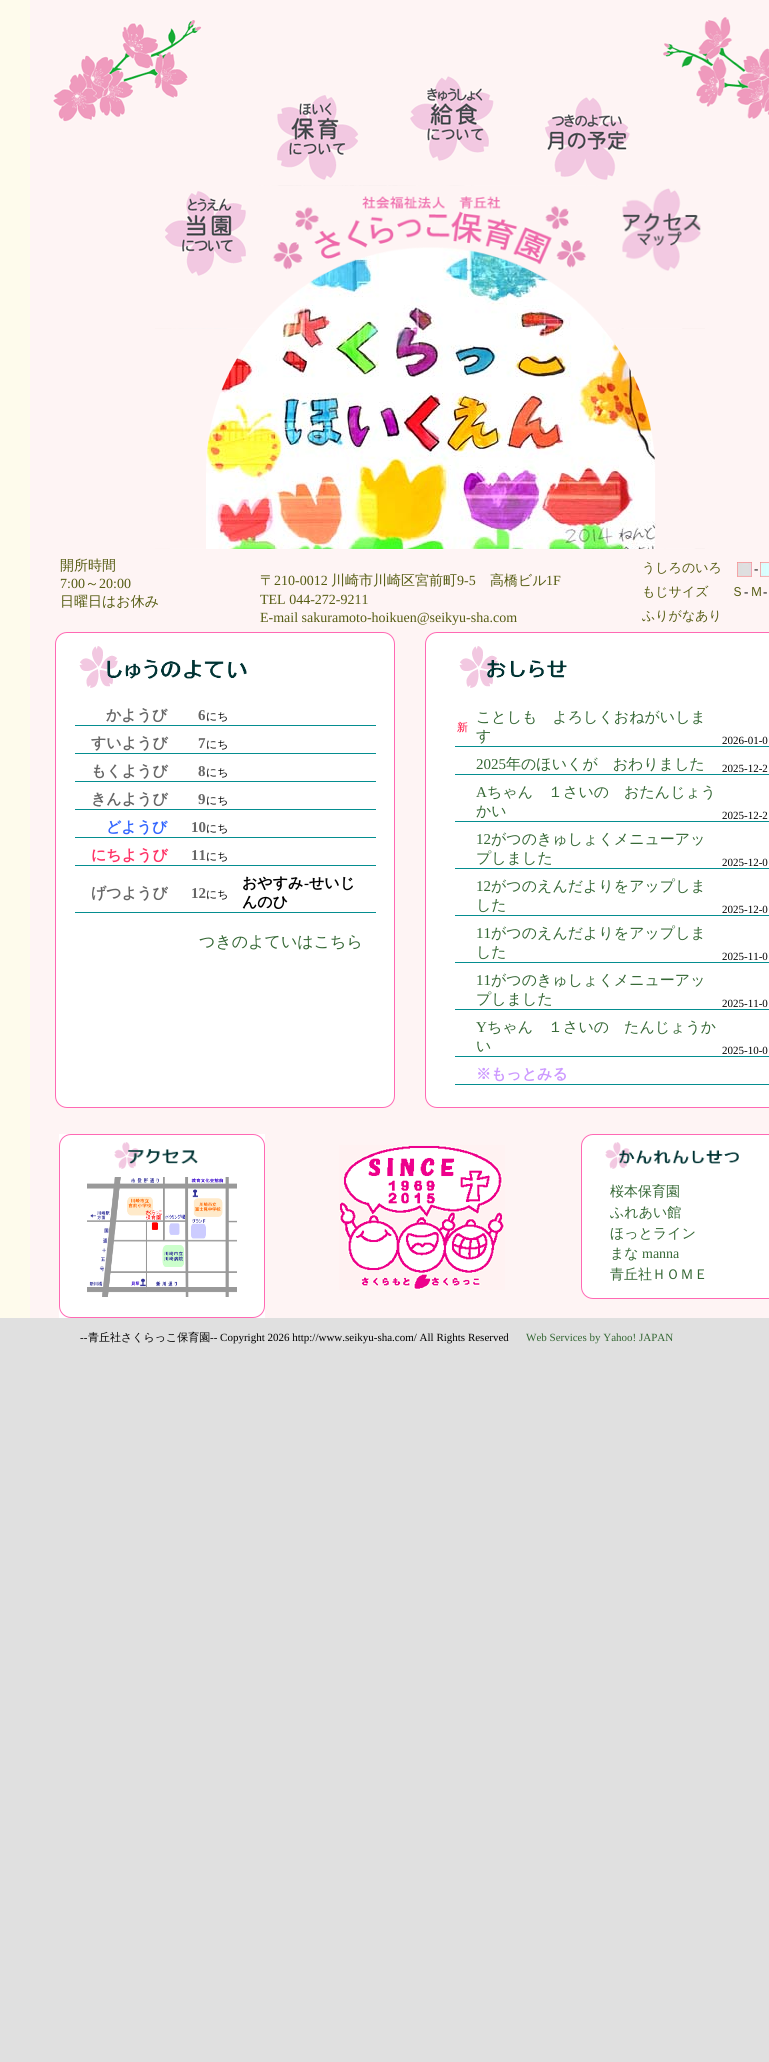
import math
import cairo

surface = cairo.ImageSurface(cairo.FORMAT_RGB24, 769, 2062)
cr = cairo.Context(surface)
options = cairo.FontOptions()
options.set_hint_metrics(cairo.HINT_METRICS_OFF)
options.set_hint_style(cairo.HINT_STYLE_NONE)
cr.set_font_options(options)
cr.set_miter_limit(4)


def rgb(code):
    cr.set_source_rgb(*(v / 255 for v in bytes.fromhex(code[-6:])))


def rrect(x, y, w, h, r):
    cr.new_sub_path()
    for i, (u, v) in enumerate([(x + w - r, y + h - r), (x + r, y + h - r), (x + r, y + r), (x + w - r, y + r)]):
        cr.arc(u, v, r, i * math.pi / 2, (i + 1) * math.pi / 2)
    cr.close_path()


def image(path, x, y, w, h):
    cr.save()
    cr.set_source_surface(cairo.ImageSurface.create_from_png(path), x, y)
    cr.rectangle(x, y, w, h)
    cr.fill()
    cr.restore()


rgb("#e0e0e0")
cr.paint()
rgb("#fefbec")
cr.rectangle(0, 0, 30, 1318)
cr.fill()
rgb("#fef4f4")
cr.rectangle(30, 0, 739, 185)
cr.fill()
image("img/1.png", 52, 20, 150, 102)
image("img/2.png", 277, 95, 82, 85)
image("img/3.png", 410, 76, 84, 85)
image("img/4.png", 545, 97, 85, 83)
image("img/5.png", 663, 17, 106, 103)
cr.rectangle(30, 185, 125, 364)
cr.fill()
image("img/6.png", 155, 185, 550, 364)
cr.rectangle(155, 185, 104, 143)
cr.fill()
image("img/7.png", 165, 191, 81, 85)
image("img/8.png", 259, 185, 343, 142)
cr.rectangle(602, 185, 103, 143)
cr.fill()
image("img/9.png", 622, 188, 79, 83)
image("img/10.png", 155, 328, 550, 221)
cr.rectangle(705, 185, 64, 364)
cr.fill()
cr.rectangle(30, 549, 739, 769)
cr.fill()
image("img/11.png", 737, 562, 15, 15)
image("img/12.png", 760, 562, 9, 15)
rgb("#ffffff")
rrect(55.5, 632.5, 339, 475, 11.5)
cr.fill_preserve()
rgb("#ff69b4")
cr.set_line_width(1)
cr.stroke()
image("img/13.png", 79, 646, 39, 42)
image("img/14.png", 107, 659, 140, 20)
for x, y, w, h, color in [
    (75, 725, 301, 1, "#058e90"),
    (75, 753, 301, 1, "#058e90"),
    (75, 781, 301, 1, "#058e90"),
    (75, 809, 301, 1, "#058e90"),
    (75, 837, 301, 1, "#058e90"),
    (75, 865, 301, 1, "#058e90"),
    (75, 912, 301, 1, "#058e90"),
]:
    rgb(color)
    cr.rectangle(x, y, w, h)
    cr.fill()
rgb("#ffffff")
rrect(425.5, 632.5, 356, 475, 11.5)
cr.fill_preserve()
rgb("#ff69b4")
cr.stroke()
image("img/13.png", 459, 646, 39, 42)
image("img/15.png", 487, 660, 80, 18)
for x, y, w, h, color in [
    (455, 746, 314, 1, "#058e90"),
    (455, 774, 314, 1, "#058e90"),
    (455, 821, 314, 1, "#058e90"),
    (455, 868, 314, 1, "#058e90"),
    (455, 915, 314, 1, "#058e90"),
    (455, 962, 314, 1, "#058e90"),
    (455, 1009, 314, 1, "#058e90"),
    (455, 1056, 314, 1, "#058e90"),
    (455, 1084, 314, 1, "#058e90"),
    (59, 1134, 206, 184, "#ffffff"),
]:
    rgb(color)
    cr.rectangle(x, y, w, h)
    cr.fill()
rrect(59.5, 1134.5, 205, 183, 11.5)
rgb("#ff69b4")
cr.stroke()
image("img/16.png", 114, 1142, 25, 27)
image("img/17.png", 128, 1149, 70, 15)
image("img/18.png", 87, 1177, 150, 120)
image("img/19.png", 339, 1145, 166, 145)
rgb("#ffffff")
rrect(581.5, 1134.5, 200, 164, 11.5)
cr.fill_preserve()
rgb("#ff69b4")
cr.stroke()
image("img/16.png", 605, 1142, 25, 27)
image("img/20.png", 619, 1150, 120, 14)
cr.select_font_face("WenQuanYi Zen Hei Medium")
cr.set_font_size(14)
rgb("#555c12")
cr.move_to(60, 570)
cr.show_text("開所時間")
cr.select_font_face("Liberation Serif")
cr.move_to(60, 588)
cr.show_text("7:00")
cr.select_font_face("WenQuanYi Zen Hei Medium")
cr.move_to(85, 588)
cr.show_text("～")
cr.select_font_face("Liberation Serif")
cr.move_to(99, 588)
cr.show_text("20:00")
cr.select_font_face("WenQuanYi Zen Hei Medium")
cr.move_to(60, 606)
cr.show_text("日曜日はお休み")
cr.move_to(260, 585)
cr.show_text("〒")
cr.select_font_face("Liberation Serif")
cr.move_to(274, 585)
cr.show_text("210-0012")
cr.select_font_face("WenQuanYi Zen Hei Medium")
cr.move_to(331, 585)
cr.show_text("川崎市川崎区宮前町")
cr.select_font_face("Liberation Serif")
cr.move_to(457, 585)
cr.show_text("9-5")
cr.select_font_face("WenQuanYi Zen Hei Medium")
cr.move_to(490, 585)
cr.show_text("高橋ビル")
cr.select_font_face("Liberation Serif")
for x, y, s in [
    (546, 585, "1F"),
    (260, 604, "TEL 044-272-9211"),
    (260, 622, "E-mail sakuramoto-hoikuen@seikyu-sha.com"),
]:
    cr.move_to(x, y)
    cr.show_text(s)
cr.select_font_face("WenQuanYi Zen Hei Medium")
cr.set_font_size(13)
cr.move_to(642, 572)
cr.show_text("うしろのいろ")
cr.select_font_face("Liberation Serif")
rgb("#000000")
cr.move_to(754, 573)
cr.show_text("-")
cr.select_font_face("WenQuanYi Zen Hei Medium")
rgb("#555c12")
cr.move_to(642, 596)
cr.show_text("もじサイズ")
cr.move_to(731, 596)
cr.show_text("Ｓ")
cr.select_font_face("Liberation Serif")
rgb("#000000")
cr.move_to(744, 596)
cr.show_text("-")
cr.select_font_face("WenQuanYi Zen Hei Medium")
rgb("#555c12")
cr.move_to(750, 596)
cr.show_text("Ｍ")
cr.select_font_face("Liberation Serif")
rgb("#000000")
cr.move_to(763, 596)
cr.show_text("-")
cr.select_font_face("WenQuanYi Zen Hei Medium")
rgb("#555c12")
cr.move_to(642, 620)
cr.show_text("ふりがなあり")
cr.select_font_face("WenQuanYi Zen Hei", cairo.FONT_SLANT_NORMAL, cairo.FONT_WEIGHT_BOLD)
cr.set_font_size(15)
rgb("#666666")
cr.move_to(106, 720)
cr.show_text("かようび")
cr.select_font_face("Liberation Serif", cairo.FONT_SLANT_NORMAL, cairo.FONT_WEIGHT_BOLD)
cr.move_to(198, 720)
cr.show_text("6")
cr.select_font_face("WenQuanYi Zen Hei Medium")
cr.set_font_size(11)
rgb("#000000")
cr.move_to(206, 720)
cr.show_text("にち")
cr.select_font_face("WenQuanYi Zen Hei", cairo.FONT_SLANT_NORMAL, cairo.FONT_WEIGHT_BOLD)
cr.set_font_size(15)
rgb("#666666")
cr.move_to(91, 748)
cr.show_text("すいようび")
cr.select_font_face("Liberation Serif", cairo.FONT_SLANT_NORMAL, cairo.FONT_WEIGHT_BOLD)
cr.move_to(198, 748)
cr.show_text("7")
cr.select_font_face("WenQuanYi Zen Hei Medium")
cr.set_font_size(11)
rgb("#000000")
cr.move_to(206, 748)
cr.show_text("にち")
cr.select_font_face("WenQuanYi Zen Hei", cairo.FONT_SLANT_NORMAL, cairo.FONT_WEIGHT_BOLD)
cr.set_font_size(15)
rgb("#666666")
cr.move_to(91, 776)
cr.show_text("もくようび")
cr.select_font_face("Liberation Serif", cairo.FONT_SLANT_NORMAL, cairo.FONT_WEIGHT_BOLD)
cr.move_to(198, 776)
cr.show_text("8")
cr.select_font_face("WenQuanYi Zen Hei Medium")
cr.set_font_size(11)
rgb("#000000")
cr.move_to(206, 776)
cr.show_text("にち")
cr.select_font_face("WenQuanYi Zen Hei", cairo.FONT_SLANT_NORMAL, cairo.FONT_WEIGHT_BOLD)
cr.set_font_size(15)
rgb("#666666")
cr.move_to(91, 804)
cr.show_text("きんようび")
cr.select_font_face("Liberation Serif", cairo.FONT_SLANT_NORMAL, cairo.FONT_WEIGHT_BOLD)
cr.move_to(198, 804)
cr.show_text("9")
cr.select_font_face("WenQuanYi Zen Hei Medium")
cr.set_font_size(11)
rgb("#000000")
cr.move_to(206, 804)
cr.show_text("にち")
cr.select_font_face("WenQuanYi Zen Hei", cairo.FONT_SLANT_NORMAL, cairo.FONT_WEIGHT_BOLD)
cr.set_font_size(15)
rgb("#3366ff")
cr.move_to(106, 832)
cr.show_text("どようび")
cr.select_font_face("Liberation Serif", cairo.FONT_SLANT_NORMAL, cairo.FONT_WEIGHT_BOLD)
rgb("#666666")
cr.move_to(191, 832)
cr.show_text("10")
cr.select_font_face("WenQuanYi Zen Hei Medium")
cr.set_font_size(11)
rgb("#000000")
cr.move_to(206, 832)
cr.show_text("にち")
cr.select_font_face("WenQuanYi Zen Hei", cairo.FONT_SLANT_NORMAL, cairo.FONT_WEIGHT_BOLD)
cr.set_font_size(15)
rgb("#ff3366")
cr.move_to(91, 860)
cr.show_text("にちようび")
cr.select_font_face("Liberation Serif", cairo.FONT_SLANT_NORMAL, cairo.FONT_WEIGHT_BOLD)
rgb("#666666")
cr.move_to(191, 860)
cr.show_text("11")
cr.select_font_face("WenQuanYi Zen Hei Medium")
cr.set_font_size(11)
rgb("#000000")
cr.move_to(206, 860)
cr.show_text("にち")
cr.select_font_face("WenQuanYi Zen Hei", cairo.FONT_SLANT_NORMAL, cairo.FONT_WEIGHT_BOLD)
cr.set_font_size(15)
rgb("#666666")
cr.move_to(91, 898)
cr.show_text("げつようび")
cr.select_font_face("Liberation Serif", cairo.FONT_SLANT_NORMAL, cairo.FONT_WEIGHT_BOLD)
cr.move_to(191, 898)
cr.show_text("12")
cr.select_font_face("WenQuanYi Zen Hei Medium")
cr.set_font_size(11)
rgb("#000000")
cr.move_to(206, 898)
cr.show_text("にち")
cr.select_font_face("WenQuanYi Zen Hei", cairo.FONT_SLANT_NORMAL, cairo.FONT_WEIGHT_BOLD)
cr.set_font_size(15)
cr.move_to(242, 888)
cr.show_text("おやすみ")
cr.select_font_face("Liberation Serif", cairo.FONT_SLANT_NORMAL, cairo.FONT_WEIGHT_BOLD)
cr.move_to(304, 888)
cr.show_text("-")
cr.select_font_face("WenQuanYi Zen Hei", cairo.FONT_SLANT_NORMAL, cairo.FONT_WEIGHT_BOLD)
cr.move_to(309, 888)
cr.show_text("せいじ")
cr.move_to(242, 907)
cr.show_text("んのひ")
cr.select_font_face("WenQuanYi Zen Hei Medium")
cr.set_font_size(16)
rgb("#346734")
cr.move_to(199, 947)
cr.show_text("つきのよていはこちら")
cr.set_font_size(11)
rgb("#ff0033")
cr.move_to(457, 731)
cr.show_text("新")
cr.set_font_size(15)
rgb("#346734")
cr.move_to(476, 722)
cr.show_text("ことしも　よろしくおねがいしま")
cr.move_to(476, 741)
cr.show_text("す")
cr.select_font_face("Liberation Serif")
cr.set_font_size(11)
rgb("#000000")
cr.move_to(722, 744)
cr.show_text("2026-01-0")
cr.set_font_size(15)
rgb("#346734")
cr.move_to(476, 769)
cr.show_text("2025")
cr.select_font_face("WenQuanYi Zen Hei Medium")
cr.move_to(506, 769)
cr.show_text("年のほいくが　おわりました")
cr.select_font_face("Liberation Serif")
cr.set_font_size(11)
rgb("#000000")
cr.move_to(722, 772)
cr.show_text("2025-12-2")
cr.set_font_size(15)
rgb("#346734")
cr.move_to(476, 797)
cr.show_text("A")
cr.select_font_face("WenQuanYi Zen Hei Medium")
cr.move_to(487, 797)
cr.show_text("ちゃん　１さいの　おたんじょう")
cr.move_to(476, 816)
cr.show_text("かい")
cr.select_font_face("Liberation Serif")
cr.set_font_size(11)
rgb("#000000")
cr.move_to(722, 819)
cr.show_text("2025-12-2")
cr.set_font_size(15)
rgb("#346734")
cr.move_to(476, 844)
cr.show_text("12")
cr.select_font_face("WenQuanYi Zen Hei Medium")
cr.move_to(491, 844)
cr.show_text("がつのきゅしょくメニューアッ")
cr.move_to(476, 863)
cr.show_text("プしました")
cr.select_font_face("Liberation Serif")
cr.set_font_size(11)
rgb("#000000")
cr.move_to(722, 866)
cr.show_text("2025-12-0")
cr.set_font_size(15)
rgb("#346734")
cr.move_to(476, 891)
cr.show_text("12")
cr.select_font_face("WenQuanYi Zen Hei Medium")
cr.move_to(491, 891)
cr.show_text("がつのえんだよりをアップしま")
cr.move_to(476, 910)
cr.show_text("した")
cr.select_font_face("Liberation Serif")
cr.set_font_size(11)
rgb("#000000")
cr.move_to(722, 913)
cr.show_text("2025-12-0")
cr.set_font_size(15)
rgb("#346734")
cr.move_to(476, 938)
cr.show_text("11")
cr.select_font_face("WenQuanYi Zen Hei Medium")
cr.move_to(491, 938)
cr.show_text("がつのえんだよりをアップしま")
cr.move_to(476, 957)
cr.show_text("した")
cr.select_font_face("Liberation Serif")
cr.set_font_size(11)
rgb("#000000")
cr.move_to(722, 960)
cr.show_text("2025-11-0")
cr.set_font_size(15)
rgb("#346734")
cr.move_to(476, 985)
cr.show_text("11")
cr.select_font_face("WenQuanYi Zen Hei Medium")
cr.move_to(491, 985)
cr.show_text("がつのきゅしょくメニューアッ")
cr.move_to(476, 1004)
cr.show_text("プしました")
cr.select_font_face("Liberation Serif")
cr.set_font_size(11)
rgb("#000000")
cr.move_to(722, 1007)
cr.show_text("2025-11-0")
cr.set_font_size(15)
rgb("#346734")
cr.move_to(476, 1032)
cr.show_text("Y")
cr.select_font_face("WenQuanYi Zen Hei Medium")
cr.move_to(487, 1032)
cr.show_text("ちゃん　１さいの　たんじょうか")
cr.move_to(476, 1051)
cr.show_text("い")
cr.select_font_face("Liberation Serif")
cr.set_font_size(11)
rgb("#000000")
cr.move_to(722, 1054)
cr.show_text("2025-10-0")
cr.select_font_face("WenQuanYi Zen Hei", cairo.FONT_SLANT_NORMAL, cairo.FONT_WEIGHT_BOLD)
cr.set_font_size(15)
rgb("#cc99ff")
cr.move_to(476, 1079)
cr.show_text("※もっとみる")
cr.select_font_face("WenQuanYi Zen Hei Medium")
cr.set_font_size(14)
rgb("#346734")
for x, y, s in [
    (610, 1196, "桜本保育園"),
    (610, 1217, "ふれあい館"),
    (610, 1238, "ほっとライン"),
    (610, 1258, "まな"),
]:
    cr.move_to(x, y)
    cr.show_text(s)
cr.select_font_face("Liberation Serif")
cr.move_to(642, 1258)
cr.show_text("manna")
cr.select_font_face("WenQuanYi Zen Hei Medium")
cr.move_to(610, 1279)
cr.show_text("青丘社ＨＯＭＥ")
cr.select_font_face("Liberation Serif")
cr.set_font_size(11)
rgb("#000000")
cr.move_to(80, 1341)
cr.show_text("--")
cr.select_font_face("WenQuanYi Zen Hei Medium")
cr.move_to(88, 1341)
cr.show_text("青丘社さくらっこ保育園")
cr.select_font_face("Liberation Serif")
cr.move_to(210, 1341)
cr.show_text("-- Copyright 2026 http://www.seikyu-sha.com/ All Rights Reserved")
rgb("#346734")
cr.move_to(526, 1341)
cr.show_text("Web Services by Yahoo! JAPAN")
surface.write_to_png("page.png")
